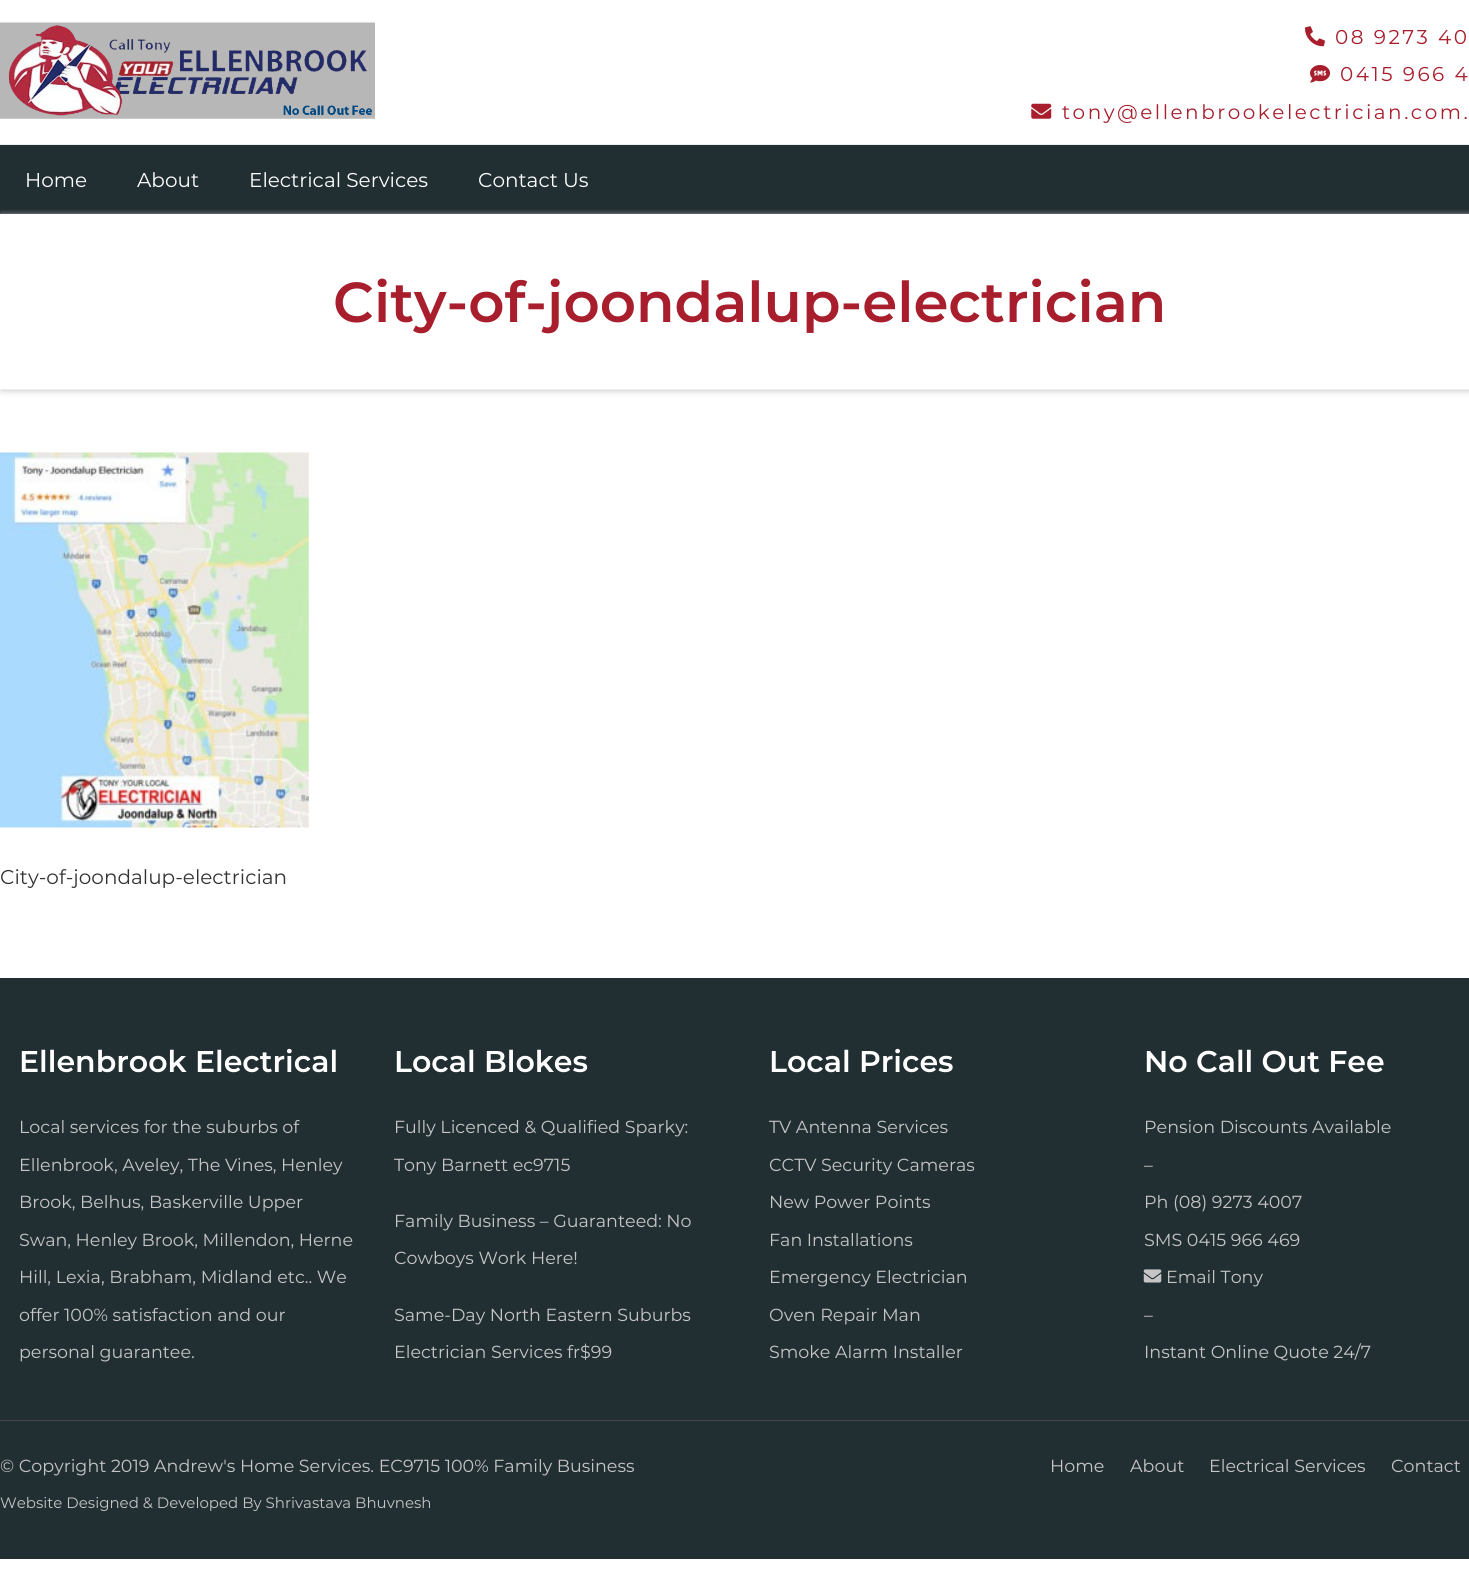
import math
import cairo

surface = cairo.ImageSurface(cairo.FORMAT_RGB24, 1469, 1573)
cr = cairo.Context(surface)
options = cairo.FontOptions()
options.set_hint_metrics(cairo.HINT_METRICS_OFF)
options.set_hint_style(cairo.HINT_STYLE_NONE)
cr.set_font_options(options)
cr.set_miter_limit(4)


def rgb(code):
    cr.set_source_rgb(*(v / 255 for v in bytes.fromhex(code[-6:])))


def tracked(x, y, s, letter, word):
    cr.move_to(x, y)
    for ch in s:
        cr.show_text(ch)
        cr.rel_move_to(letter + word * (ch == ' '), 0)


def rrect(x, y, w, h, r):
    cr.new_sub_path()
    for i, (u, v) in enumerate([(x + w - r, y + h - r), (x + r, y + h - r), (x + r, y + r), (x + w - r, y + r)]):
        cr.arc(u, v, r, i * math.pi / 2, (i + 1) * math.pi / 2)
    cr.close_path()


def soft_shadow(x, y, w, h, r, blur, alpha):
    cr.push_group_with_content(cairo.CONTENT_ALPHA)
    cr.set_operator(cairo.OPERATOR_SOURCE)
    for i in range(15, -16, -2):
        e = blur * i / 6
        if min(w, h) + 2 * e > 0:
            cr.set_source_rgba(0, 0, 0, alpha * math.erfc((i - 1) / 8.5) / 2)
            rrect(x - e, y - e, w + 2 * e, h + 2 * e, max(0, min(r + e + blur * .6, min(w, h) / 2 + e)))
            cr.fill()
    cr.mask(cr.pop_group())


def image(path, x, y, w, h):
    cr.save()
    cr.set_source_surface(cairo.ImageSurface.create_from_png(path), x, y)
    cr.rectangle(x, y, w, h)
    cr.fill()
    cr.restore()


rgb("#ffffff")
cr.paint()
rgb("#eeeeee")
cr.rectangle(0, 144, 1469, 1)
cr.fill()
image("img/1.png", 0, 22, 375, 97)
image("img/2.png", 1305, 26, 20, 21)
image("img/3.png", 1310, 65, 20, 18)
image("img/4.png", 1031, 103, 21, 16)
rgb("#212e32")
cr.rectangle(0, 145, 1469, 69)
cr.fill()
cr.save()
cr.set_fill_rule(cairo.FILL_RULE_EVEN_ODD)
cr.new_path()
cr.move_to(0, 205)
cr.line_to(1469, 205)
cr.line_to(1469, 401)
cr.line_to(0, 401)
cr.close_path()
cr.move_to(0, 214)
cr.line_to(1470, 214)
cr.line_to(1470, 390)
cr.line_to(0, 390)
cr.close_path()
cr.clip()
rgb("#cccccc")
soft_shadow(1, 215, 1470, 176, 0, 3, 1)
cr.restore()
rgb("#eeeeee")
cr.rectangle(0, 389, 1469, 1)
cr.fill()
image("img/5.png", 0, 452, 309, 376)
rgb("#212e32")
cr.rectangle(0, 978, 1469, 581)
cr.fill()
rgb("#444748")
cr.rectangle(0, 1420, 1469, 1)
cr.fill()
image("img/6.png", 1143, 1269, 19, 14)
cr.select_font_face("Montserrat")
cr.set_font_size(20)
rgb("#a81e2d")
for x, y, s in [
    (1335, 44, "08 9273 40"),
    (1340, 81, "0415 966 4"),
    (1062, 119, "tony@ellenbrookelectrician.com."),
]:
    tracked(x, y, s, 2.5, 0)
rgb("#ffffff")
for x, y, s in [
    (25, 187, "Home"),
    (137, 187, "About"),
    (249, 187, "Electrical Services"),
    (478, 187, "Contact Us"),
]:
    cr.move_to(x, y)
    cr.show_text(s)
cr.select_font_face("Montserrat SemiBold")
cr.set_font_size(56.25)
rgb("#a81e2d")
cr.move_to(333, 322)
cr.show_text("City-of-joondalup-electrician")
cr.select_font_face("Montserrat")
cr.set_font_size(20)
rgb("#333333")
cr.move_to(0, 884)
cr.show_text("City-of-joondalup-electrician")
cr.select_font_face("Montserrat SemiBold")
cr.set_font_size(30)
rgb("#ffffff")
cr.move_to(19, 1072)
cr.show_text("Ellenbrook Electrical")
cr.select_font_face("Montserrat")
cr.set_font_size(17.5)
rgb("#c6c6c6")
for x, y, s in [
    (19, 1133, "Local services for the suburbs of"),
    (19, 1171, "Ellenbrook, Aveley, The Vines, Henley"),
    (19, 1208, "Brook, Belhus, Baskerville Upper"),
    (19, 1246, "Swan, Henley Brook, Millendon, Herne"),
    (19, 1283, "Hill, Lexia, Brabham, Midland etc.. We"),
    (19, 1321, "offer 100% satisfaction and our"),
    (19, 1358, "personal guarantee."),
]:
    cr.move_to(x, y)
    cr.show_text(s)
cr.select_font_face("Montserrat SemiBold")
cr.set_font_size(30)
rgb("#ffffff")
cr.move_to(394, 1072)
cr.show_text("Local Blokes")
cr.select_font_face("Montserrat")
cr.set_font_size(17.5)
rgb("#c6c6c6")
for x, y, s in [
    (394, 1133, "Fully Licenced & Qualified Sparky:"),
    (394, 1171, "Tony Barnett ec9715"),
    (394, 1227, "Family Business – Guaranteed: No"),
    (394, 1264, "Cowboys Work Here!"),
    (394, 1321, "Same-Day North Eastern Suburbs"),
    (394, 1358, "Electrician Services fr$99"),
]:
    cr.move_to(x, y)
    cr.show_text(s)
cr.select_font_face("Montserrat SemiBold")
cr.set_font_size(30)
rgb("#ffffff")
cr.move_to(769, 1072)
cr.show_text("Local Prices")
cr.select_font_face("Montserrat")
cr.set_font_size(17.5)
rgb("#c6c6c6")
for x, y, s in [
    (769, 1133, "TV Antenna Services"),
    (769, 1171, "CCTV Security Cameras"),
    (769, 1208, "New Power Points"),
    (769, 1246, "Fan Installations"),
    (769, 1283, "Emergency Electrician"),
    (769, 1321, "Oven Repair Man"),
    (769, 1358, "Smoke Alarm Installer"),
]:
    cr.move_to(x, y)
    cr.show_text(s)
cr.select_font_face("Montserrat SemiBold")
cr.set_font_size(30)
rgb("#ffffff")
cr.move_to(1144, 1072)
cr.show_text("No Call Out Fee")
cr.select_font_face("Montserrat")
cr.set_font_size(17.5)
rgb("#c6c6c6")
for x, y, s in [
    (1144, 1133, "Pension Discounts Available"),
    (1144, 1171, "–"),
    (1144, 1208, "Ph (08) 9273 4007"),
    (1144, 1246, "SMS 0415 966 469"),
    (1166, 1283, "Email Tony"),
    (1144, 1321, "–"),
    (1144, 1358, "Instant Online Quote 24/7"),
    (0, 1472, "© Copyright 2019 Andrew's Home Services. EC9715 100% Family Business"),
]:
    cr.move_to(x, y)
    cr.show_text(s)
cr.set_font_size(15)
cr.move_to(0, 1508)
cr.show_text("Website Designed & Developed By Shrivastava Bhuvnesh")
cr.set_font_size(17.5)
for x, y, s in [
    (1050, 1472, "Home"),
    (1130, 1472, "About"),
    (1209, 1472, "Electrical Services"),
    (1391, 1472, "Contact"),
]:
    cr.move_to(x, y)
    cr.show_text(s)
surface.write_to_png("page.png")
